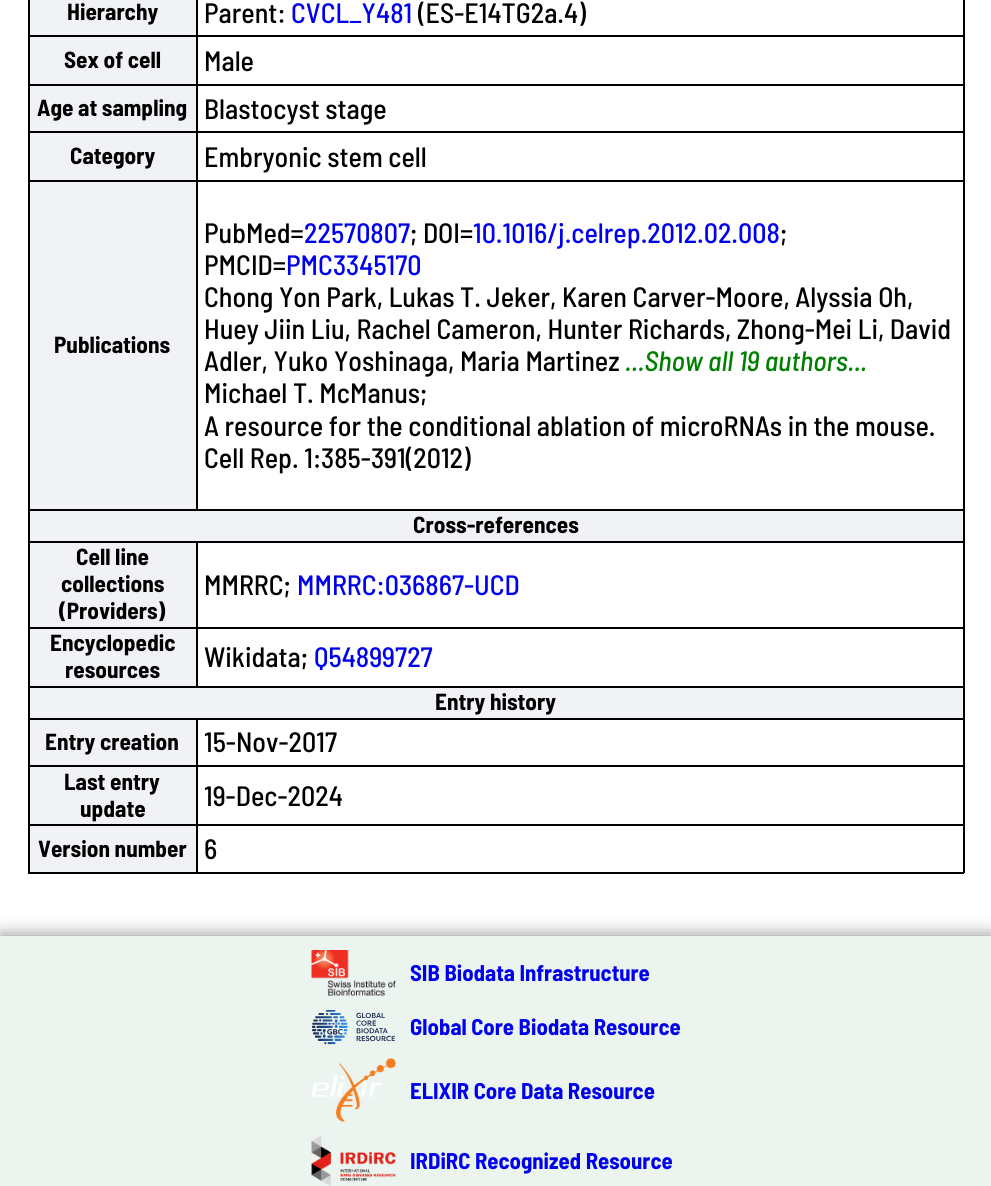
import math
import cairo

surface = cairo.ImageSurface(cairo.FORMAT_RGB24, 991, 1186)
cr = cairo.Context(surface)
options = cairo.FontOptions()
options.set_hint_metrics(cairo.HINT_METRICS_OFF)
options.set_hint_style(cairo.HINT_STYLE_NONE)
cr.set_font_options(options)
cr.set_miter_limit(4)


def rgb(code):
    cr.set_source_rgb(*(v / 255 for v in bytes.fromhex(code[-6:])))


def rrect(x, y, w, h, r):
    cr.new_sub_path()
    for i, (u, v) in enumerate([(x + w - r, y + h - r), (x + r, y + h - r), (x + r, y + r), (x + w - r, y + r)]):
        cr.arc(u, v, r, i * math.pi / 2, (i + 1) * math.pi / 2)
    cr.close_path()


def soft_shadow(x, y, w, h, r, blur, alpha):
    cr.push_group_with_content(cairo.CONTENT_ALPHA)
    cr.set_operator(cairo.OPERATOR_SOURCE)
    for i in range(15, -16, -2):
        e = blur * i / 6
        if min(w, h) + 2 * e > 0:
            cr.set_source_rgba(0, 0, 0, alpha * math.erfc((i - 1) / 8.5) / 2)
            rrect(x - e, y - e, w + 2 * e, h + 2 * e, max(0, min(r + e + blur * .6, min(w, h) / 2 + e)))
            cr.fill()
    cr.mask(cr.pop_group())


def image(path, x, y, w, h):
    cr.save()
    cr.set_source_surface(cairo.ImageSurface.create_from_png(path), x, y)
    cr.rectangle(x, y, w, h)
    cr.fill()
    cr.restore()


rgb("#ffffff")
cr.paint()
for x, y, w, h, color in [
    (963, 0, 2, 873, "#000000"),
    (28, 872, 936, 2, "#000000"),
    (28, 0, 2, 873, "#000000"),
    (30, 0, 166, 35, "#f0f2f5"),
    (28, 35, 936, 2, "#000000"),
    (30, 37, 166, 47, "#f0f2f5"),
    (28, 84, 936, 2, "#000000"),
    (30, 86, 166, 45, "#f0f2f5"),
    (28, 131, 936, 2, "#000000"),
    (30, 133, 166, 47, "#f0f2f5"),
    (28, 180, 936, 2, "#000000"),
    (30, 182, 166, 327, "#f0f2f5"),
    (28, 509, 936, 2, "#000000"),
    (196, 0, 2, 511, "#000000"),
    (30, 511, 933, 30, "#f0f2f5"),
    (28, 541, 936, 2, "#000000"),
    (30, 543, 166, 84, "#f0f2f5"),
    (28, 627, 936, 2, "#000000"),
    (30, 629, 166, 57, "#f0f2f5"),
    (28, 686, 936, 2, "#000000"),
    (196, 541, 2, 147, "#000000"),
    (30, 688, 933, 30, "#f0f2f5"),
    (28, 718, 936, 2, "#000000"),
    (30, 720, 166, 45, "#f0f2f5"),
    (28, 765, 936, 2, "#000000"),
    (30, 767, 166, 57, "#f0f2f5"),
    (28, 824, 936, 2, "#000000"),
    (30, 826, 166, 46, "#f0f2f5"),
    (196, 718, 2, 155, "#000000"),
]:
    rgb(color)
    cr.rectangle(x, y, w, h)
    cr.fill()
rgb("#888888")
soft_shadow(0, 936, 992, 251, 0, 9, 1)
rgb("#ecf4f0")
cr.rectangle(0, 936, 991, 250)
cr.fill()
image("img/1.png", 311, 950, 85, 46)
image("img/2.png", 312, 1010, 83, 35)
image("img/3.png", 311, 1058, 85, 64)
image("img/4.png", 311, 1135, 85, 51)
cr.select_font_face("Barlow Semi Condensed", cairo.FONT_SLANT_NORMAL, cairo.FONT_WEIGHT_BOLD)
cr.set_font_size(23.25)
rgb("#000000")
cr.move_to(67, 20)
cr.show_text("Hierarchy")
cr.select_font_face("Barlow Semi Condensed Medium")
cr.set_font_size(28)
cr.move_to(204, 23)
cr.show_text("Parent:")
rgb("#0000ee")
cr.move_to(291, 23)
cr.show_text("CVCL_Y481")
rgb("#000000")
cr.move_to(418, 23)
cr.show_text("(ES-E14TG2a.4)")
cr.select_font_face("Barlow Semi Condensed", cairo.FONT_SLANT_NORMAL, cairo.FONT_WEIGHT_BOLD)
cr.set_font_size(23.25)
cr.move_to(64, 68)
cr.show_text("Sex of cell")
cr.select_font_face("Barlow Semi Condensed Medium")
cr.set_font_size(28)
cr.move_to(204, 71)
cr.show_text("Male")
cr.select_font_face("Barlow Semi Condensed", cairo.FONT_SLANT_NORMAL, cairo.FONT_WEIGHT_BOLD)
cr.set_font_size(23.25)
cr.move_to(37, 116)
cr.show_text("Age at sampling")
cr.select_font_face("Barlow Semi Condensed Medium")
cr.set_font_size(28)
cr.move_to(204, 119)
cr.show_text("Blastocyst stage")
cr.select_font_face("Barlow Semi Condensed", cairo.FONT_SLANT_NORMAL, cairo.FONT_WEIGHT_BOLD)
cr.set_font_size(23.25)
cr.move_to(70, 164)
cr.show_text("Category")
cr.select_font_face("Barlow Semi Condensed Medium")
cr.set_font_size(28)
cr.move_to(204, 167)
cr.show_text("Embryonic stem cell")
cr.select_font_face("Barlow Semi Condensed", cairo.FONT_SLANT_NORMAL, cairo.FONT_WEIGHT_BOLD)
cr.set_font_size(23.25)
cr.move_to(54, 353)
cr.show_text("Publications")
cr.select_font_face("Barlow Semi Condensed Medium")
cr.set_font_size(28)
cr.move_to(204, 243)
cr.show_text("PubMed=")
rgb("#0000ee")
cr.move_to(304, 243)
cr.show_text("22570807")
rgb("#000000")
cr.move_to(410, 243)
cr.show_text("; DOI=")
rgb("#0000ee")
cr.move_to(473, 243)
cr.show_text("10.1016/j.celrep.2012.02.008")
rgb("#000000")
cr.move_to(780, 243)
cr.show_text(";")
cr.move_to(204, 275)
cr.show_text("PMCID=")
rgb("#0000ee")
cr.move_to(286, 275)
cr.show_text("PMC3345170")
rgb("#000000")
for x, y, s in [
    (204, 307, "Chong Yon Park, Lukas T. Jeker, Karen Carver-Moore, Alyssia Oh,"),
    (204, 339, "Huey Jiin Liu, Rachel Cameron, Hunter Richards, Zhong-Mei Li, David"),
    (204, 371, "Adler, Yuko Yoshinaga, Maria Martinez"),
]:
    cr.move_to(x, y)
    cr.show_text(s)
cr.select_font_face("Barlow Semi Condensed Medium", cairo.FONT_SLANT_ITALIC)
rgb("#008000")
cr.move_to(625, 371)
cr.show_text("...Show all 19 authors...")
cr.select_font_face("Barlow Semi Condensed Medium")
rgb("#000000")
for x, y, s in [
    (204, 403, "Michael T. McManus;"),
    (204, 436, "A resource for the conditional ablation of microRNAs in the mouse."),
    (204, 468, "Cell Rep. 1:385-391(2012)"),
]:
    cr.move_to(x, y)
    cr.show_text(s)
cr.select_font_face("Barlow Semi Condensed", cairo.FONT_SLANT_NORMAL, cairo.FONT_WEIGHT_BOLD)
cr.set_font_size(23.25)
for x, y, s in [
    (413, 533, "Cross-references"),
    (76, 565, "Cell line"),
    (61, 592, "collections"),
    (59, 619, "(Providers)"),
]:
    cr.move_to(x, y)
    cr.show_text(s)
cr.select_font_face("Barlow Semi Condensed Medium")
cr.set_font_size(28)
cr.move_to(204, 595)
cr.show_text("MMRRC;")
rgb("#0000ee")
cr.move_to(297, 595)
cr.show_text("MMRRC:036867-UCD")
cr.select_font_face("Barlow Semi Condensed", cairo.FONT_SLANT_NORMAL, cairo.FONT_WEIGHT_BOLD)
cr.set_font_size(23.25)
rgb("#000000")
cr.move_to(50, 651)
cr.show_text("Encyclopedic")
cr.move_to(65, 678)
cr.show_text("resources")
cr.select_font_face("Barlow Semi Condensed Medium")
cr.set_font_size(28)
cr.move_to(204, 667)
cr.show_text("Wikidata;")
rgb("#0000ee")
cr.move_to(314, 667)
cr.show_text("Q54899727")
cr.select_font_face("Barlow Semi Condensed", cairo.FONT_SLANT_NORMAL, cairo.FONT_WEIGHT_BOLD)
cr.set_font_size(23.25)
rgb("#000000")
cr.move_to(435, 710)
cr.show_text("Entry history")
cr.move_to(45, 750)
cr.show_text("Entry creation")
cr.select_font_face("Barlow Semi Condensed Medium")
cr.set_font_size(28)
cr.move_to(204, 752)
cr.show_text("15-Nov-2017")
cr.select_font_face("Barlow Semi Condensed", cairo.FONT_SLANT_NORMAL, cairo.FONT_WEIGHT_BOLD)
cr.set_font_size(23.25)
cr.move_to(64, 790)
cr.show_text("Last entry")
cr.move_to(80, 817)
cr.show_text("update")
cr.select_font_face("Barlow Semi Condensed Medium")
cr.set_font_size(28)
cr.move_to(204, 806)
cr.show_text("19-Dec-2024")
cr.select_font_face("Barlow Semi Condensed", cairo.FONT_SLANT_NORMAL, cairo.FONT_WEIGHT_BOLD)
cr.set_font_size(23.25)
cr.move_to(38, 857)
cr.show_text("Version number")
cr.select_font_face("Barlow Semi Condensed Medium")
cr.set_font_size(28)
cr.move_to(204, 859)
cr.show_text("6")
cr.select_font_face("Barlow Semi Condensed", cairo.FONT_SLANT_NORMAL, cairo.FONT_WEIGHT_BOLD)
cr.set_font_size(22.75)
rgb("#0000ee")
for x, y, s in [
    (410, 981, "SIB Biodata Infrastructure"),
    (410, 1035, "Global Core Biodata Resource"),
    (410, 1099, "ELIXIR Core Data Resource"),
    (410, 1169, "IRDiRC Recognized Resource"),
]:
    cr.move_to(x, y)
    cr.show_text(s)
surface.write_to_png("page.png")
